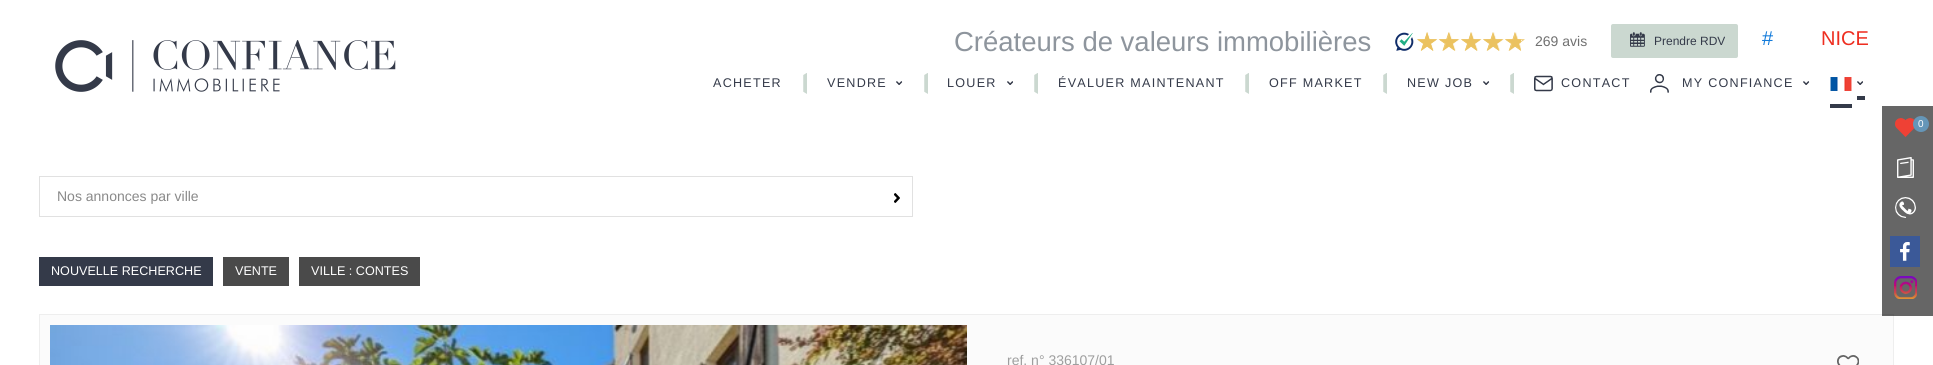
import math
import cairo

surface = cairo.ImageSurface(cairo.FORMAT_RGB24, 1933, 365)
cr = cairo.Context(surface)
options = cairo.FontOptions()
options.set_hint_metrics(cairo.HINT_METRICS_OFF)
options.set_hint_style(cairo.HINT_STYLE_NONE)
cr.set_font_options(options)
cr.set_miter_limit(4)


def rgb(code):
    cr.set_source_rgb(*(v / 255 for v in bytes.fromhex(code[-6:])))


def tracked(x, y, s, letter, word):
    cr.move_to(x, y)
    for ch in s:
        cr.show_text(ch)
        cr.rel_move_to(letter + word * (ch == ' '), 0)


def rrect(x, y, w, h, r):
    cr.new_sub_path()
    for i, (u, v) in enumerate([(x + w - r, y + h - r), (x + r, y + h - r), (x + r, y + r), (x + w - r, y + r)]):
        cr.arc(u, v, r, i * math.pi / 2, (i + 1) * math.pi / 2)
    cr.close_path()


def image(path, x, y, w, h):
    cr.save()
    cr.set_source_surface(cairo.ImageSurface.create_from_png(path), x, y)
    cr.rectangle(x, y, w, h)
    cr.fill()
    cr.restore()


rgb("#ffffff")
cr.paint()
image("img/1.png", 55, 40, 341, 52)
image("img/2.png", 1395, 32, 19, 19)
image("img/3.png", 1417, 32, 108, 19)
image("img/4.png", 1417, 32, 104, 19)
rgb("#cbd8d0")
rrect(1611, 24, 127, 34, 2)
cr.fill()
image("img/5.png", 1630, 32, 15, 15)
image("img/6.png", 803, 73, 4, 21)
image("img/7.png", 896, 81, 7, 4)
image("img/6.png", 924, 73, 4, 21)
image("img/8.png", 1007, 81, 6, 4)
image("img/6.png", 1034, 73, 4, 21)
image("img/6.png", 1245, 73, 4, 21)
image("img/6.png", 1383, 73, 4, 21)
image("img/7.png", 1483, 81, 7, 4)
image("img/6.png", 1510, 73, 4, 21)
image("img/9.png", 1534, 75, 19, 17)
image("img/10.png", 1650, 74, 19, 19)
image("img/7.png", 1803, 81, 7, 4)
rgb("#343a49")
cr.rectangle(1830, 104, 22, 4)
cr.fill()
cr.rectangle(1857, 96, 8, 4)
cr.fill()
image("img/11.png", 1830, 77, 22, 14)
image("img/8.png", 1857, 81, 6, 4)
rgb("#fbfbfb")
cr.rectangle(39.5, 314.5, 1854, 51)
cr.fill_preserve()
rgb("#eeeeee")
cr.set_line_width(1)
cr.stroke()
cr.set_source_rgba(0, 0, 0, 0.6)
cr.rectangle(1882, 106, 51, 210)
cr.fill()
image("img/12.png", 1895, 118, 20, 19)
rgb("#6596b8")
cr.arc(1921, 124, 8, 0, 2 * math.pi)
cr.fill()
image("img/13.png", 1897, 157, 17, 21)
image("img/14.png", 1895, 197, 21, 21)
rgb("#3b5998")
cr.rectangle(1890, 236, 30, 31)
cr.fill()
image("img/15.png", 1900, 242, 10, 19)
image("img/16.png", 1894, 276, 23, 23)
cr.rectangle(39.5, 176.5, 873, 40)
rgb("#e1e1e1")
cr.stroke()
image("img/17.png", 894, 193, 6, 10)
for x, y, w, h, color in [
    (39, 257, 174, 29, "#343a49"),
    (223, 257, 66, 29, "#4a4a4a"),
    (299, 257, 121, 29, "#4a4a4a"),
]:
    rgb(color)
    cr.rectangle(x, y, w, h)
    cr.fill()
image("img/18.png", 50, 325, 917, 40)
image("img/19.png", 301, 325, 666, 40)
image("img/20.png", 1837, 355, 22, 10)
cr.select_font_face("Liberation Sans")
cr.set_font_size(27.5)
rgb("#8e959d")
cr.move_to(954, 51)
cr.show_text("Créateurs de valeurs immobilières")
cr.set_font_size(14)
rgb("#707070")
cr.move_to(1535, 46)
cr.show_text("269 avis")
cr.set_font_size(12)
rgb("#343a49")
cr.move_to(1654, 45)
cr.show_text("Prendre RDV")
cr.set_font_size(20)
rgb("#127ada")
cr.move_to(1762, 45)
cr.show_text("#")
rgb("#ee2e20")
cr.move_to(1821, 45)
cr.show_text("NICE")
cr.set_font_size(12.6)
rgb("#343a49")
for x, y, s in [
    (713, 87, "ACHETER"),
    (827, 87, "VENDRE"),
    (947, 87, "LOUER"),
    (1058, 87, "ÉVALUER MAINTENANT"),
    (1269, 87, "OFF MARKET"),
    (1407, 87, "NEW JOB"),
    (1561, 87, "CONTACT"),
    (1682, 87, "MY CONFIANCE"),
]:
    tracked(x, y, s, 1.25, 0)
cr.set_font_size(10)
rgb("#ffffff")
cr.move_to(1918, 127)
cr.show_text("0")
cr.set_font_size(14)
rgb("#898989")
cr.move_to(57, 201)
cr.show_text("Nos annonces par ville")
cr.set_font_size(12.6)
rgb("#ffffff")
for x, y, s in [
    (51, 275, "NOUVELLE RECHERCHE"),
    (235, 275, "VENTE"),
    (311, 275, "VILLE : CONTES"),
]:
    cr.move_to(x, y)
    cr.show_text(s)
cr.set_font_size(14)
rgb("#9e9e9e")
cr.move_to(1007, 365)
cr.show_text("ref. n° 336107/01")
surface.write_to_png("page.png")
